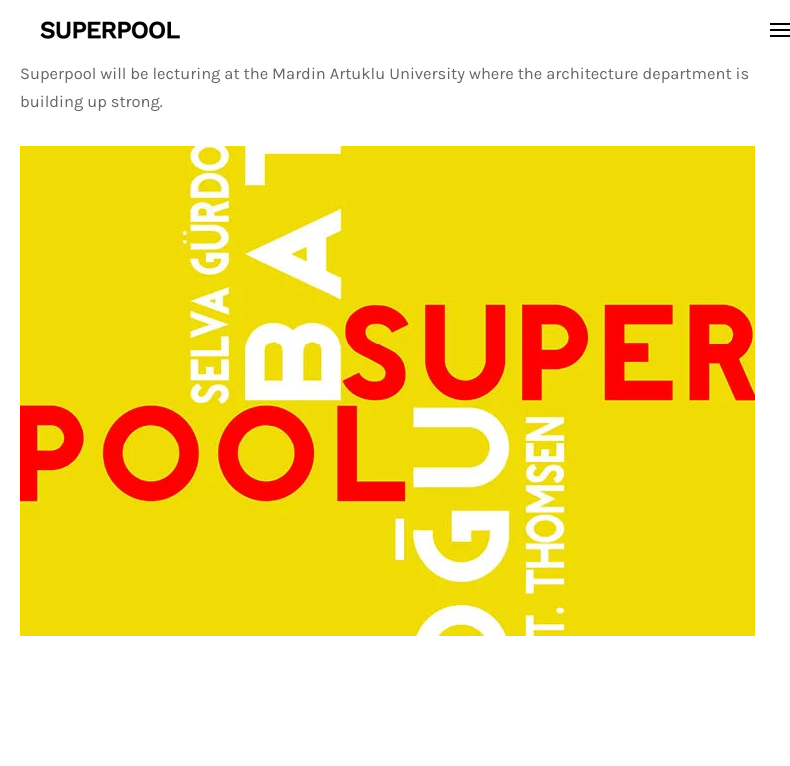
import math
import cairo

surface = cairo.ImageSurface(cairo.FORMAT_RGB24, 790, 766)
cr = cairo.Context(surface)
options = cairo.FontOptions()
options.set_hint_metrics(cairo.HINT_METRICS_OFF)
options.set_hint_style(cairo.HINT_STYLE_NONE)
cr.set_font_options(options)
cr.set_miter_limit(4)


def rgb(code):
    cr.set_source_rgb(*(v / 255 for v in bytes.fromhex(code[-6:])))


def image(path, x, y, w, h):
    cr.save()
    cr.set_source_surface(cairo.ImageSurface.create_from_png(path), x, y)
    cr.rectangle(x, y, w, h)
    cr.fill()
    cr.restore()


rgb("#ffffff")
cr.paint()
image("img/1.png", 40, 21, 140, 18)
for x, y, w, h, color in [
    (770, 23, 20, 2, "#000000"),
    (770, 29, 20, 2, "#000000"),
    (770, 35, 20, 2, "#000000"),
]:
    rgb(color)
    cr.rectangle(x, y, w, h)
    cr.fill()
image("img/2.png", 20, 146, 735, 490)
cr.select_font_face("Karla")
cr.set_font_size(16.5)
rgb("#666666")
cr.move_to(20, 79)
cr.show_text("Superpool will be lecturing at the Mardin Artuklu University where the architecture department is")
cr.move_to(20, 107)
cr.show_text("building up strong.")
surface.write_to_png("page.png")
